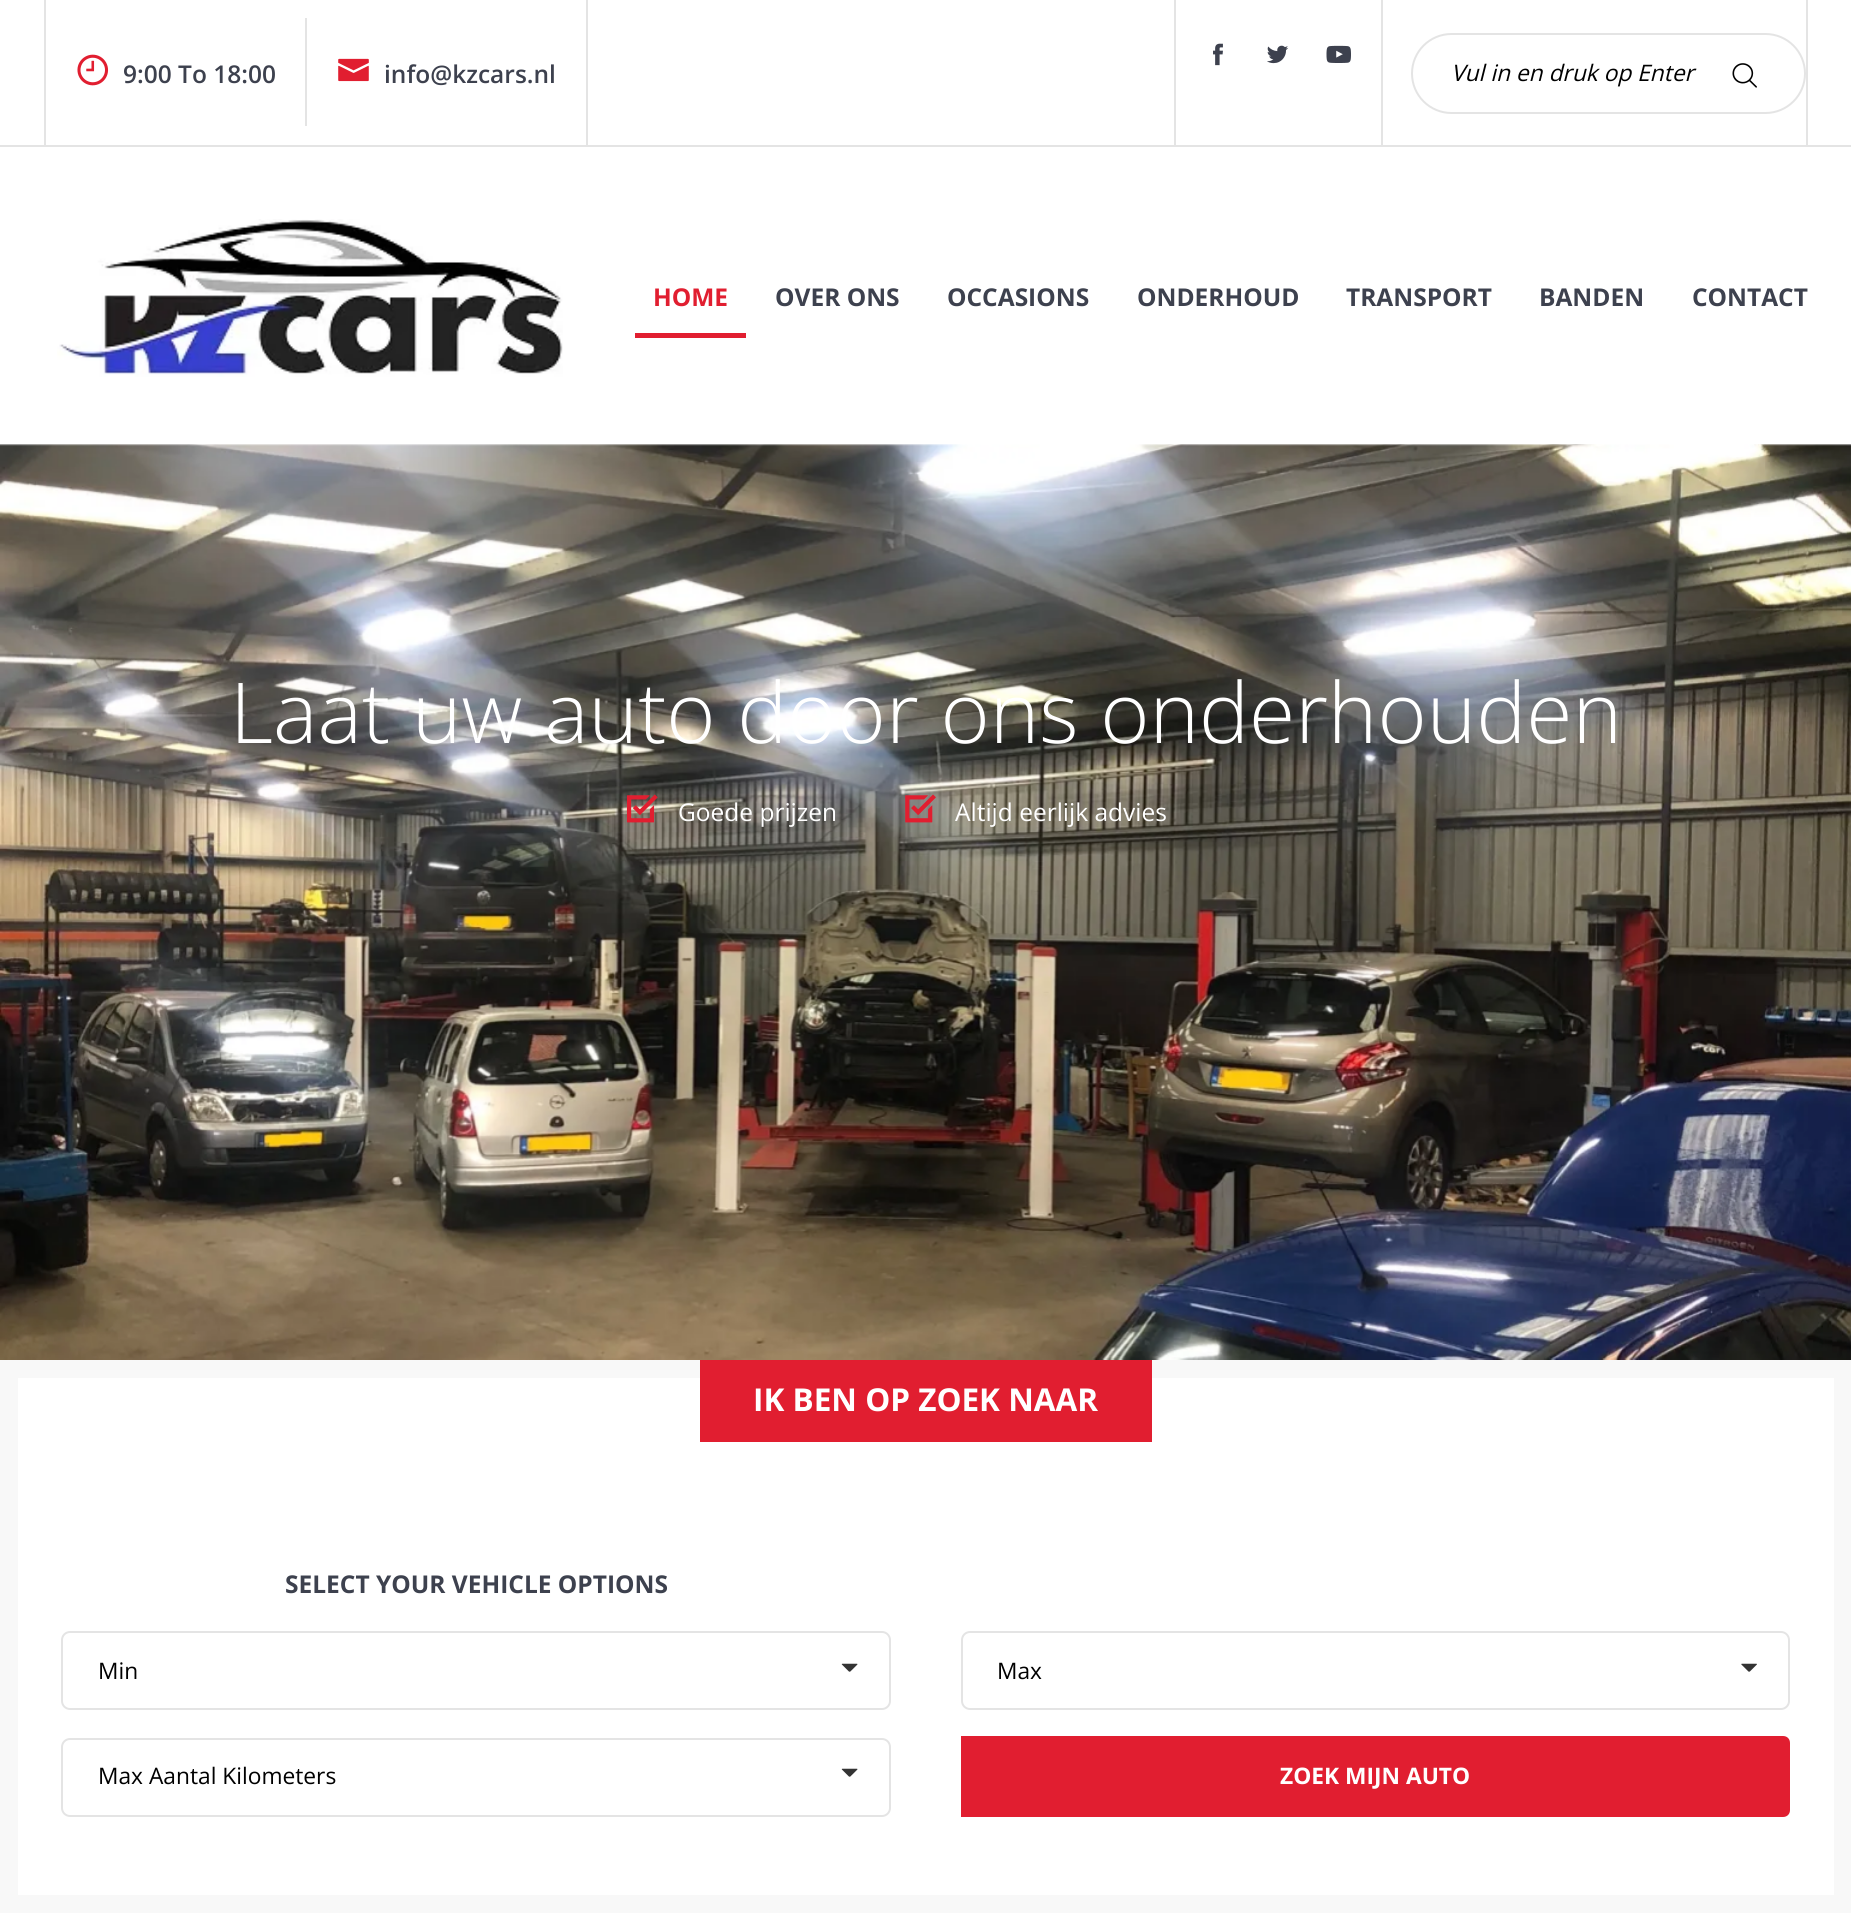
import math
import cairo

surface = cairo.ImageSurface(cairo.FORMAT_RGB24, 1851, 1931)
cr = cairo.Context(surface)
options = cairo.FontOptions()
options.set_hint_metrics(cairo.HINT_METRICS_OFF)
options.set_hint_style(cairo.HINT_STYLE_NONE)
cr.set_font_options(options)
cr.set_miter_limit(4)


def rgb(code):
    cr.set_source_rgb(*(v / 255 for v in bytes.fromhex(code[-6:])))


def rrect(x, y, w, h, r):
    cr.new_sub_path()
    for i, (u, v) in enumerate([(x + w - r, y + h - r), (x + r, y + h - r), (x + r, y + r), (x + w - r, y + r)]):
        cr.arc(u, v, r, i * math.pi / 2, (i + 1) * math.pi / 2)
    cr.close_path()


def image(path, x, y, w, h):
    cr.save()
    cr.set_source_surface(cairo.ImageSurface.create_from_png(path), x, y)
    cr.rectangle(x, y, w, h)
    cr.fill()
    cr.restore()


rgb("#ffffff")
cr.paint()
for x, y, w, h, color in [
    (0, 145, 1851, 2, "#e4e4e4"),
    (586, 0, 2, 145, "#e4e4e4"),
    (44, 0, 2, 145, "#e4e4e4"),
    (305, 18, 2, 108, "#e4e4e4"),
]:
    rgb(color)
    cr.rectangle(x, y, w, h)
    cr.fill()
image("img/1.png", 77, 54, 32, 32)
image("img/2.png", 338, 58, 31, 24)
cr.rectangle(1806, 0, 2, 145)
cr.fill()
cr.rectangle(1174, 0, 2, 145)
cr.fill()
image("img/3.png", 1213, 43, 10, 23)
image("img/4.png", 1267, 45, 22, 19)
image("img/5.png", 1326, 45, 25, 18)
cr.rectangle(1381, 0, 2, 145)
cr.fill()
rrect(1412, 34, 393, 79, 39.5)
cr.stroke()
image("img/6.png", 1732, 63, 25, 25)
image("img/7.png", 57, 219, 506, 158)
rgb("#e11e30")
cr.rectangle(635, 333, 111, 5)
cr.fill()
image("img/8.png", 0, 444, 1851, 916)
image("img/9.png", 626, 794, 32, 29)
image("img/10.png", 905, 794, 31, 29)
cr.rectangle(9, 1369, 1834, 535)
rgb("#f8f8f8")
cr.set_line_width(18)
cr.stroke()
rgb("#e11e30")
cr.rectangle(700, 1360, 452, 82)
cr.fill()
rrect(62, 1632, 828, 77, 8)
rgb("#e4e4e4")
cr.set_line_width(2)
cr.stroke()
image("img/11.png", 841, 1663, 17, 9)
rrect(962, 1632, 827, 77, 8)
cr.stroke()
image("img/12.png", 1741, 1663, 16, 9)
rrect(62, 1739, 828, 77, 8)
cr.stroke()
image("img/11.png", 841, 1768, 17, 9)
rgb("#e11e30")
cr.new_path()
cr.move_to(963, 1738)
cr.line_to(1783, 1738)
cr.curve_to(1786, 1738, 1788, 1740, 1788, 1743)
cr.line_to(1788, 1810)
cr.curve_to(1788, 1813, 1786, 1815, 1783, 1815)
cr.line_to(963, 1815)
cr.close_path()
cr.fill_preserve()
cr.set_line_width(4)
cr.stroke()
cr.select_font_face("Open Sans SemiBold")
cr.set_font_size(24.5)
rgb("#3d414e")
cr.move_to(123, 83)
cr.show_text("9:00 To 18:00")
cr.move_to(384, 83)
cr.show_text("info@kzcars.nl")
cr.select_font_face("Open Sans", cairo.FONT_SLANT_ITALIC)
cr.set_font_size(22.75)
rgb("#000000")
cr.move_to(1451, 81)
cr.show_text("Vul in en druk op Enter")
cr.select_font_face("Open Sans", cairo.FONT_SLANT_NORMAL, cairo.FONT_WEIGHT_BOLD)
cr.set_font_size(24.5)
rgb("#e11e30")
cr.move_to(653, 306)
cr.show_text("HOME")
rgb("#3d414e")
for x, y, s in [
    (775, 306, "OVER ONS"),
    (947, 306, "OCCASIONS"),
    (1137, 306, "ONDERHOUD"),
    (1346, 306, "TRANSPORT"),
    (1539, 306, "BANDEN"),
    (1692, 306, "CONTACT"),
]:
    cr.move_to(x, y)
    cr.show_text(s)
cr.select_font_face("Open Sans Light")
cr.set_font_size(84)
rgb("#ffffff")
cr.move_to(230, 743)
cr.show_text("Laat uw auto door ons onderhouden")
cr.select_font_face("Open Sans")
cr.set_font_size(24.5)
cr.move_to(678, 821)
cr.show_text("Goede prijzen")
cr.move_to(955, 821)
cr.show_text("Altijd eerlijk advies")
cr.select_font_face("Open Sans", cairo.FONT_SLANT_NORMAL, cairo.FONT_WEIGHT_BOLD)
cr.set_font_size(31.5)
cr.move_to(753, 1411)
cr.show_text("IK BEN OP ZOEK NAAR")
cr.set_font_size(24.5)
rgb("#3d414e")
cr.move_to(285, 1593)
cr.show_text("SELECT YOUR VEHICLE OPTIONS")
cr.select_font_face("Open Sans")
cr.set_font_size(22.75)
rgb("#000000")
for x, y, s in [
    (98, 1679, "Min"),
    (997, 1679, "Max"),
    (98, 1784, "Max Aantal Kilometers"),
]:
    cr.move_to(x, y)
    cr.show_text(s)
cr.select_font_face("Open Sans", cairo.FONT_SLANT_NORMAL, cairo.FONT_WEIGHT_BOLD)
rgb("#ffffff")
cr.move_to(1280, 1784)
cr.show_text("ZOEK MIJN AUTO")
surface.write_to_png("page.png")
